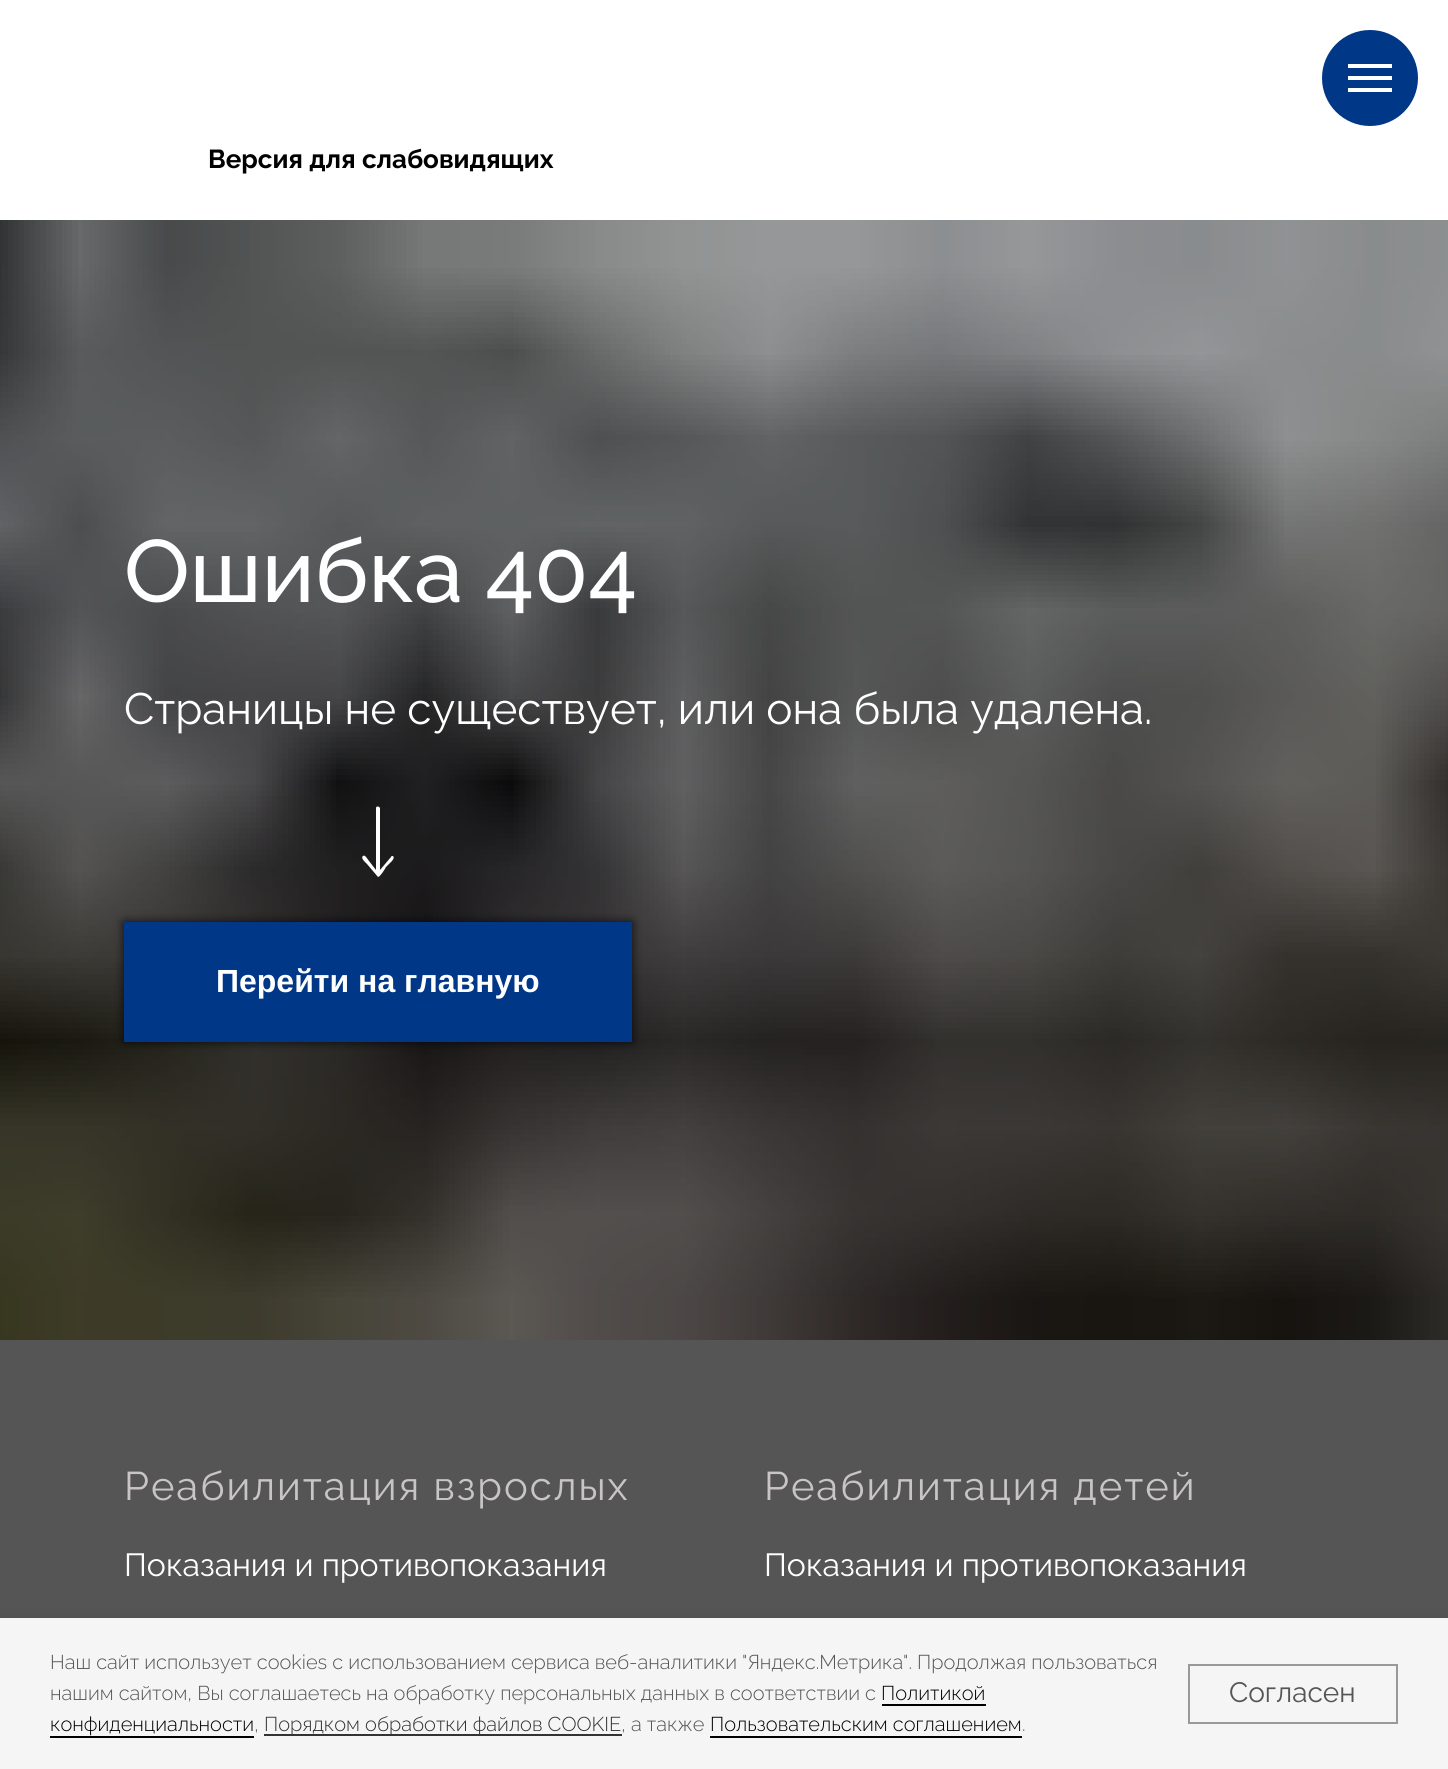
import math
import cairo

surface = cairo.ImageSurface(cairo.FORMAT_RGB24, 1448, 1769)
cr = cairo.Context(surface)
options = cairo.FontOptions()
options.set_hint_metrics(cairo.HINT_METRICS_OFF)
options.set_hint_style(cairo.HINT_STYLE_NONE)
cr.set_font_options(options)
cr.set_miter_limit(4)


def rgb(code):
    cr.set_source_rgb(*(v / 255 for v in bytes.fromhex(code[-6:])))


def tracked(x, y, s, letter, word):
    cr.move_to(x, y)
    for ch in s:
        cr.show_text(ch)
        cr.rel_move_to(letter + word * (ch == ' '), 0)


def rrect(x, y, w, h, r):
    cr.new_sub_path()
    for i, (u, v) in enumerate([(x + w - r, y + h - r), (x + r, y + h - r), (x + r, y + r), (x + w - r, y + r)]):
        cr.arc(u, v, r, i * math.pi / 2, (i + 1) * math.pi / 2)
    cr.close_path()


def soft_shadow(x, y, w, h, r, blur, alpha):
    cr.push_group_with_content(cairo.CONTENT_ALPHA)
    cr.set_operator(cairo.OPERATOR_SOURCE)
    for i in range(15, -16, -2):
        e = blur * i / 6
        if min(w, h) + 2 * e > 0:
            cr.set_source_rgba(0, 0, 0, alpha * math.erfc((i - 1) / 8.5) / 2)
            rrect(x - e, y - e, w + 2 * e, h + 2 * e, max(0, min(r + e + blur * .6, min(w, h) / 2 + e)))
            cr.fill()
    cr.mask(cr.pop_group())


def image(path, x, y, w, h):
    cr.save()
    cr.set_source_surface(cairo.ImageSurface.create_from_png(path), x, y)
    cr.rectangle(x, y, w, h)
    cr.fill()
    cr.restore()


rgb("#ffffff")
cr.paint()
rgb("#003787")
cr.arc(1370, 78, 48, 0, 2 * math.pi)
cr.fill()
for x, y, w, h, color in [
    (1348, 64, 44, 4, "#ffffff"),
    (1348, 76, 44, 4, "#ffffff"),
    (1348, 88, 44, 4, "#ffffff"),
    (0, 1340, 1448, 278, "#555555"),
]:
    rgb(color)
    cr.rectangle(x, y, w, h)
    cr.fill()
rgb("#000000")
soft_shadow(0, 1618, 1448, 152, 0, 5, 0.1)
for x, y, w, h, color in [
    (0, 1618, 1448, 151, "#f5f5f5"),
    (882, 1704, 104, 2, "#000000"),
    (50, 1736, 204, 2, "#000000"),
    (264, 1734, 358, 2, "#333333"),
    (710, 1736, 312, 2, "#000000"),
]:
    rgb(color)
    cr.rectangle(x, y, w, h)
    cr.fill()
cr.rectangle(1189, 1665, 208, 58)
rgb("#999999")
cr.stroke()
image("img/1.png", 0, 220, 1448, 1120)
rgb("#ffffff")
cr.new_path()
cr.move_to(393, 856)
cr.curve_to(392, 856, 391, 856, 391, 857)
cr.line_to(380, 870)
cr.line_to(380, 808)
cr.curve_to(379, 806, 376, 806, 376, 808)
cr.line_to(376, 870)
cr.line_to(369, 861)
cr.curve_to(368, 860, 365, 854, 363, 856)
cr.curve_to(360, 858, 366, 863, 367, 864)
cr.line_to(378, 877)
cr.curve_to(380, 877, 385, 869, 386, 867)
cr.line_to(391, 862)
cr.curve_to(392, 861, 395, 858, 393, 856)
cr.close_path()
cr.fill()
rgb("#000000")
soft_shadow(124, 922, 508, 120, 0, 5, 0.8)
rgb("#003787")
cr.rectangle(124, 922, 508, 120)
cr.fill()
cr.select_font_face("Raleway", cairo.FONT_SLANT_NORMAL, cairo.FONT_WEIGHT_BOLD)
cr.set_font_size(26)
rgb("#000000")
cr.move_to(208, 168)
cr.show_text("Версия для слабовидящих")
cr.select_font_face("Raleway Light")
cr.set_font_size(20)
rgb("#555555")
cr.move_to(50, 1669)
cr.show_text("Наш сайт использует cookies c использованием сервиса веб-аналитики \"Яндекс.Метрика\". Продолжая пользоваться")
cr.move_to(50, 1700)
cr.show_text("нашим сайтом, Вы соглашаетесь на обработку персональных данных в соответствии с")
rgb("#000000")
cr.move_to(881, 1700)
cr.show_text("Политикой")
cr.move_to(50, 1731)
cr.show_text("конфиденциальности")
rgb("#555555")
cr.move_to(254, 1731)
cr.show_text(",")
rgb("#333333")
cr.move_to(264, 1731)
cr.show_text("Порядком обработки файлов COOKIE")
rgb("#555555")
cr.move_to(621, 1731)
cr.show_text(", а также")
rgb("#000000")
cr.move_to(710, 1731)
cr.show_text("Пользовательским соглашением")
rgb("#555555")
cr.move_to(1022, 1731)
cr.show_text(".")
cr.select_font_face("Raleway")
cr.set_font_size(28)
cr.move_to(1229, 1702)
cr.show_text("Согласен")
cr.select_font_face("Raleway Medium")
cr.set_font_size(88)
rgb("#ffffff")
cr.move_to(124, 602)
cr.show_text("Ошибка 404")
cr.select_font_face("Raleway")
cr.set_font_size(44)
cr.move_to(124, 724)
cr.show_text("Страницы не существует, или она была удалена.")
cr.select_font_face("Liberation Sans", cairo.FONT_SLANT_NORMAL, cairo.FONT_WEIGHT_BOLD)
cr.set_font_size(32)
cr.move_to(216, 992)
cr.show_text("Перейти на главную")
cr.select_font_face("Raleway")
cr.set_font_size(40)
rgb("#c9c5c5")
tracked(124, 1500, "Реабилитация взрослых", 2, 0)
cr.set_font_size(32)
rgb("#ffffff")
cr.move_to(124, 1576)
cr.show_text("Показания и противопоказания")
cr.set_font_size(40)
rgb("#c9c5c5")
tracked(764, 1500, "Реабилитация детей", 2, 0)
cr.set_font_size(32)
rgb("#ffffff")
cr.move_to(764, 1576)
cr.show_text("Показания и противопоказания")
surface.write_to_png("page.png")
